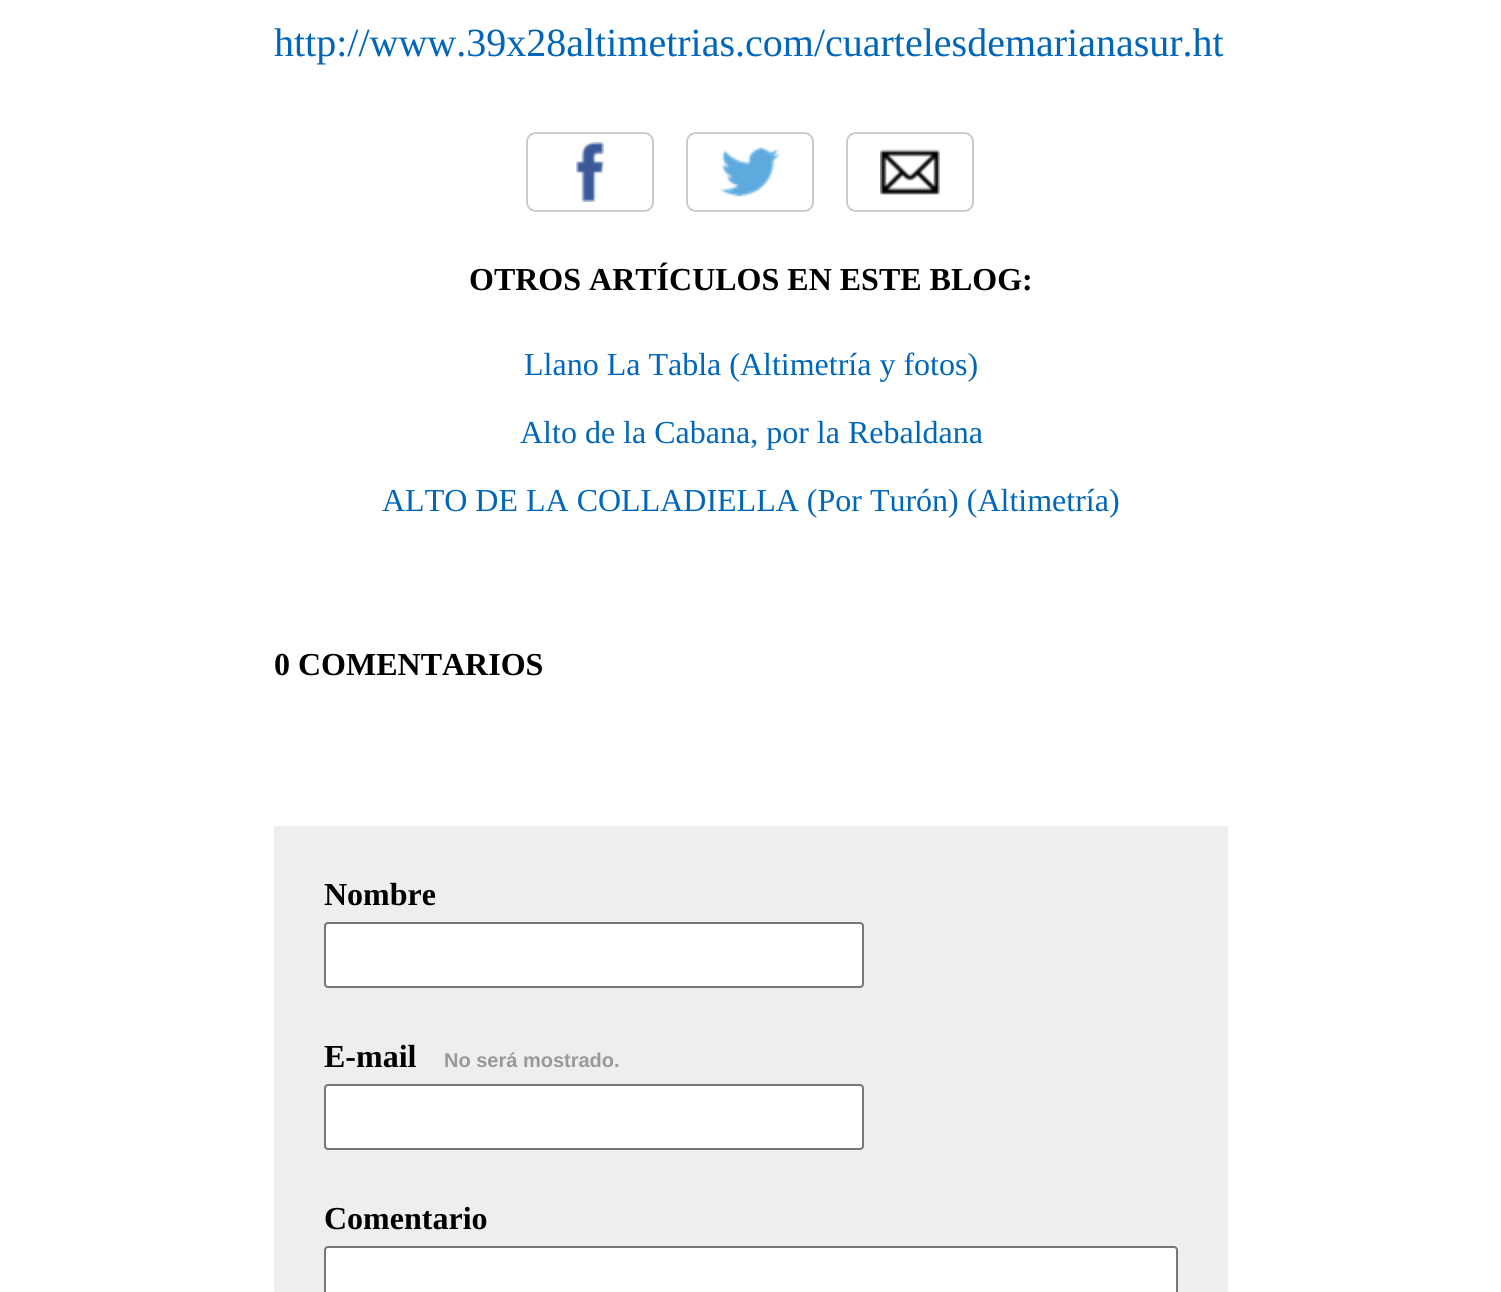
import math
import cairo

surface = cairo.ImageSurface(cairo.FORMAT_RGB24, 1501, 1292)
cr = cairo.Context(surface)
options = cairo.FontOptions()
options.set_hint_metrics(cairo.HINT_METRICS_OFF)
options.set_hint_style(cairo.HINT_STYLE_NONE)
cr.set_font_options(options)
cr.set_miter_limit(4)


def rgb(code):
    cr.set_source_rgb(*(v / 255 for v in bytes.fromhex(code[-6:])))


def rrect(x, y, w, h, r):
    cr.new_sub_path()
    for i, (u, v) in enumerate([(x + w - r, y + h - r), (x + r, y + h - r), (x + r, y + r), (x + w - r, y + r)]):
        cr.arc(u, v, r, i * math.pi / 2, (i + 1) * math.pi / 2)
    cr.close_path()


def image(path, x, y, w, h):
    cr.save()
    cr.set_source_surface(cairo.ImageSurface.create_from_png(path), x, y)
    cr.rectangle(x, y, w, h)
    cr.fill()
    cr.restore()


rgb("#ffffff")
cr.paint()
image("img/1.png", 576, 142, 28, 60)
rrect(527, 133, 126, 78, 9)
rgb("#cccccc")
cr.stroke()
image("img/2.png", 720, 147, 60, 50)
rrect(687, 133, 126, 78, 9)
cr.stroke()
image("img/3.png", 880, 149, 60, 46)
rrect(847, 133, 126, 78, 9)
cr.stroke()
rgb("#eeeeee")
cr.rectangle(274, 826, 954, 466)
cr.fill()
rgb("#ffffff")
rrect(325, 923, 538, 64, 3)
cr.fill_preserve()
rgb("#767676")
cr.stroke()
rgb("#ffffff")
rrect(325, 1085, 538, 64, 3)
cr.fill_preserve()
rgb("#767676")
cr.stroke()
rgb("#ffffff")
rrect(325, 1247, 852, 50, 3)
cr.fill_preserve()
rgb("#767676")
cr.stroke()
cr.select_font_face("Liberation Serif")
cr.set_font_size(40)
rgb("#0066bb")
cr.move_to(274, 56)
cr.show_text("http://www.39x28altimetrias.com/cuartelesdemarianasur.ht")
cr.select_font_face("Liberation Serif", cairo.FONT_SLANT_NORMAL, cairo.FONT_WEIGHT_BOLD)
cr.set_font_size(32)
rgb("#000000")
cr.move_to(469, 290)
cr.show_text("OTROS ARTÍCULOS EN ESTE BLOG:")
cr.select_font_face("Liberation Serif")
rgb("#0066bb")
for x, y, s in [
    (524, 375, "Llano La Tabla (Altimetría y fotos)"),
    (520, 443, "Alto de la Cabana, por la Rebaldana"),
    (382, 511, "ALTO DE LA COLLADIELLA (Por Turón) (Altimetría)"),
]:
    cr.move_to(x, y)
    cr.show_text(s)
cr.select_font_face("Liberation Serif", cairo.FONT_SLANT_NORMAL, cairo.FONT_WEIGHT_BOLD)
rgb("#000000")
for x, y, s in [
    (274, 675, "0 COMENTARIOS"),
    (324, 905, "Nombre"),
    (324, 1067, "E-mail"),
]:
    cr.move_to(x, y)
    cr.show_text(s)
cr.select_font_face("Liberation Sans", cairo.FONT_SLANT_NORMAL, cairo.FONT_WEIGHT_BOLD)
cr.set_font_size(20)
rgb("#999999")
cr.move_to(444, 1067)
cr.show_text("No será mostrado.")
cr.select_font_face("Liberation Serif", cairo.FONT_SLANT_NORMAL, cairo.FONT_WEIGHT_BOLD)
cr.set_font_size(32)
rgb("#000000")
cr.move_to(324, 1229)
cr.show_text("Comentario")
surface.write_to_png("page.png")
